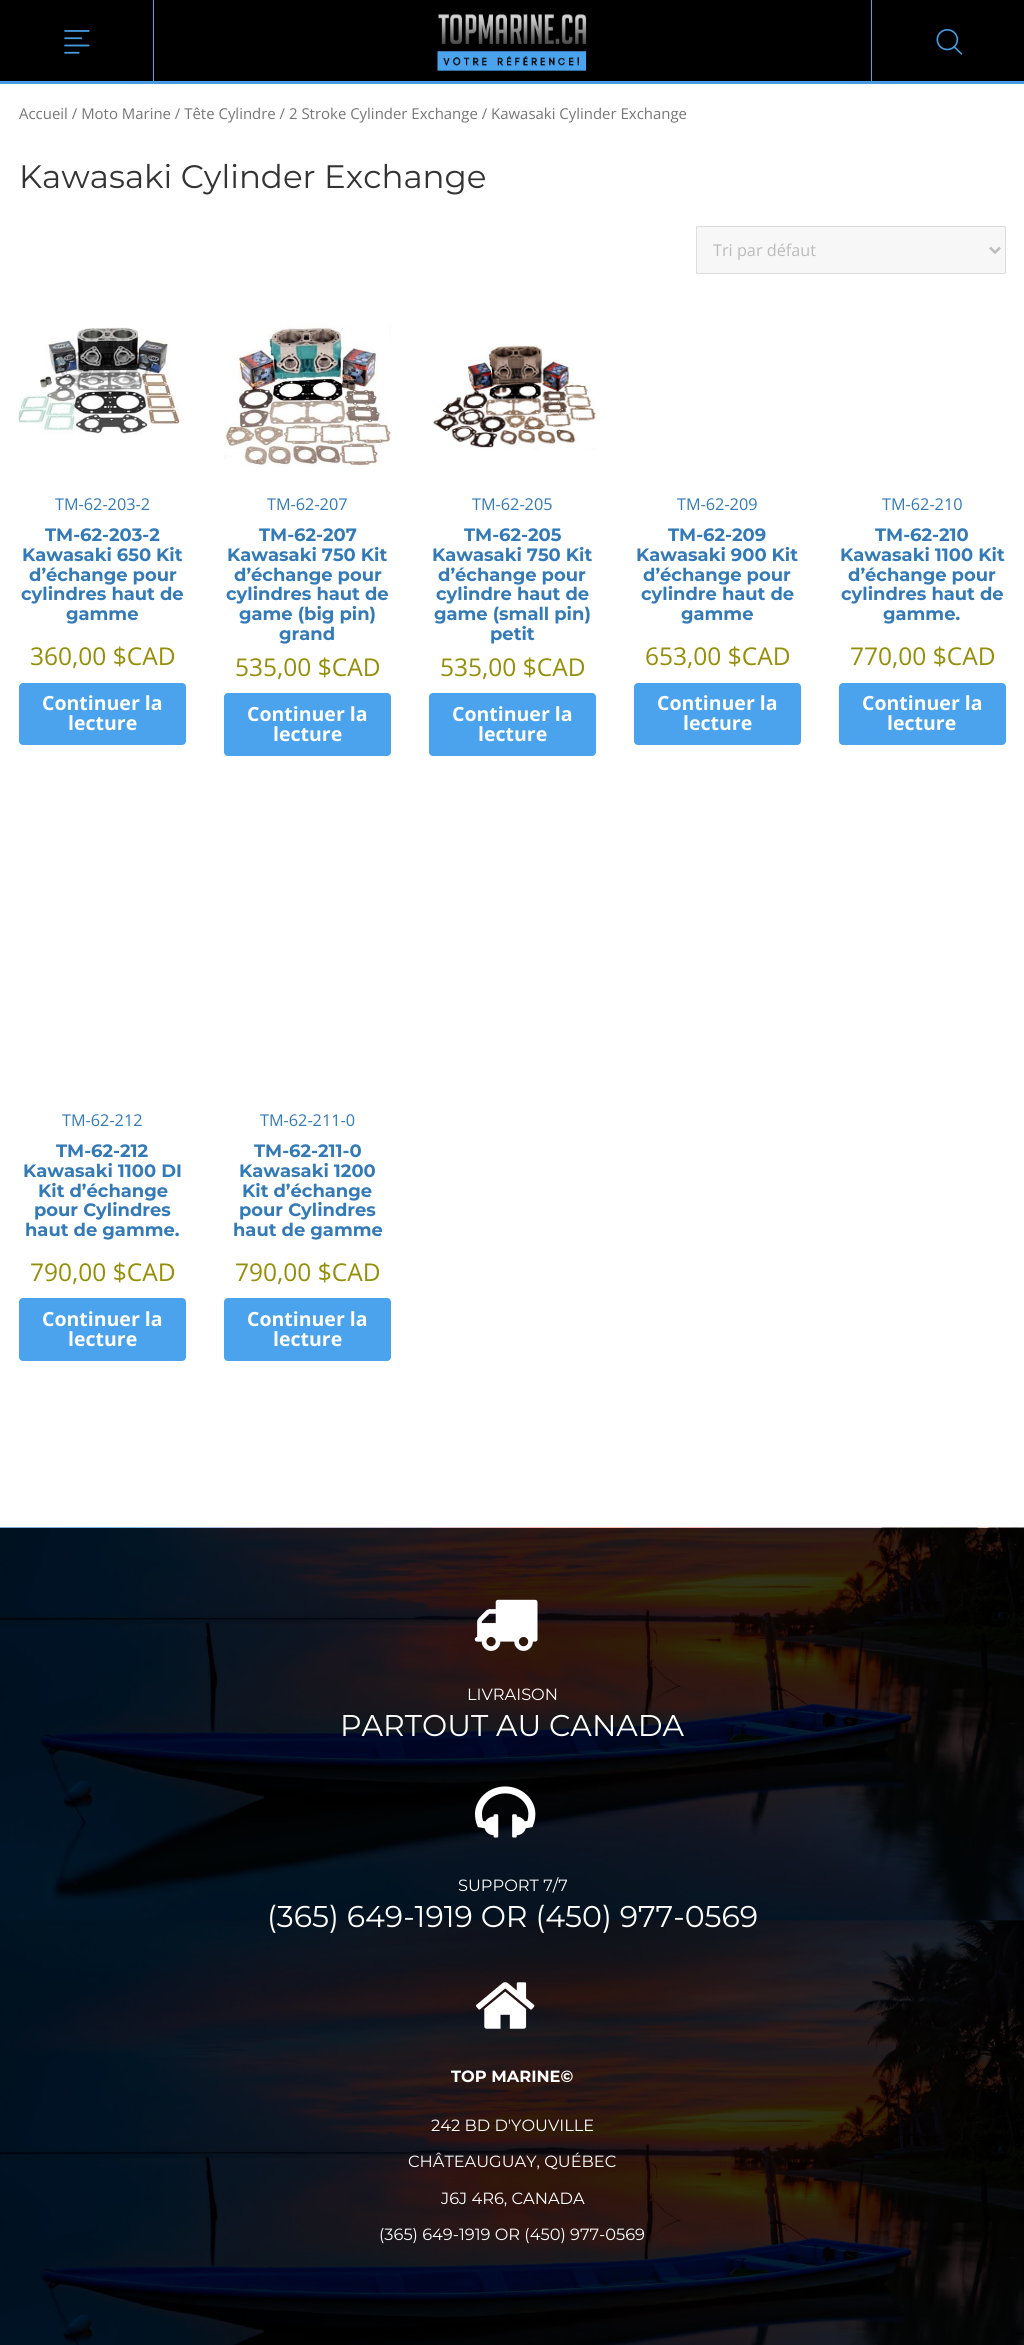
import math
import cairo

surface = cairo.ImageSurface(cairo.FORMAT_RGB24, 1024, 2345)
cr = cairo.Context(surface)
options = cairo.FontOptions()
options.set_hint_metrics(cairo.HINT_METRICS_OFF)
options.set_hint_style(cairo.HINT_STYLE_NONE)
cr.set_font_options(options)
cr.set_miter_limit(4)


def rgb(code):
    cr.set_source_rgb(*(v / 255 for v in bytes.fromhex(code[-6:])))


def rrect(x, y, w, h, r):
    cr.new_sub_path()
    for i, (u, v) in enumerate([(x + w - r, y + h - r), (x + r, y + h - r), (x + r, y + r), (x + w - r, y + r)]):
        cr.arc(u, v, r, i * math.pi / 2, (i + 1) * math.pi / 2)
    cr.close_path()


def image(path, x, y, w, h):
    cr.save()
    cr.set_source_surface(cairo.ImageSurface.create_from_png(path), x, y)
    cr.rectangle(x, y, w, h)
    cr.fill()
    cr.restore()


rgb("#ffffff")
cr.paint()
for x, y, w, h, color in [
    (0, 0, 1024, 81, "#000000"),
    (0, 81, 1024, 3, "#469be1"),
    (153, 0, 1, 81, "#4aa3ec"),
]:
    rgb(color)
    cr.rectangle(x, y, w, h)
    cr.fill()
image("img/1.png", 64, 30, 26, 24)
image("img/2.png", 437, 14, 150, 57)
cr.rectangle(871, 0, 1, 81)
cr.fill()
image("img/3.png", 936, 29, 27, 26)
rgb("#f7f7f7")
rrect(696.5, 226.5, 309, 47, 0.5)
cr.fill_preserve()
rgb("#dddddd")
cr.set_line_width(1)
cr.stroke()
cr.new_path()
cr.move_to(990, 247.5)
cr.line_to(995, 252.5)
cr.line_to(1000, 247.5)
rgb("#bbbbbb")
cr.set_line_width(2.5)
cr.stroke()
image("img/4.png", 18, 327, 162, 108)
rgb("#4aa3ec")
rrect(19, 683, 167, 62, 4)
cr.fill()
image("img/5.png", 224, 324, 167, 143)
rrect(224, 693, 167, 63, 4)
cr.fill()
image("img/6.png", 433, 344, 163, 106)
rrect(429, 693, 167, 63, 4)
cr.fill()
rrect(634, 683, 167, 62, 4)
cr.fill()
rrect(839, 683, 167, 62, 4)
cr.fill()
rrect(19, 1298, 167, 63, 4)
cr.fill()
rrect(224, 1298, 167, 63, 4)
cr.fill()
image("img/7.png", 0, 1527, 1024, 818)
image("img/8.png", 474, 1599, 64, 52)
image("img/9.png", 475, 1786, 61, 52)
image("img/10.png", 476, 1982, 59, 47)
cr.select_font_face("Open Sans")
cr.set_font_size(14.95)
rgb("#767676")
cr.move_to(19, 119)
cr.show_text("Accueil / Moto Marine / Tête Cylindre / 2 Stroke Cylinder Exchange / Kawasaki Cylinder Exchange")
cr.select_font_face("Montserrat")
cr.set_font_size(32.5)
rgb("#333333")
cr.move_to(19, 188)
cr.show_text("Kawasaki Cylinder Exchange")
cr.select_font_face("Open Sans")
cr.set_font_size(16.25)
rgb("#bbbbbb")
cr.move_to(713, 256)
cr.show_text("Tri par défaut")
rgb("#337ab7")
cr.move_to(55, 510)
cr.show_text("TM-62-203-2")
cr.select_font_face("Montserrat", cairo.FONT_SLANT_NORMAL, cairo.FONT_WEIGHT_BOLD)
cr.set_font_size(17.9)
for x, y, s in [
    (45, 541, "TM-62-203-2"),
    (22, 561, "Kawasaki 650 Kit"),
    (29, 581, "d’échange pour"),
    (21, 600, "cylindres haut de"),
    (66, 620, "gamme"),
]:
    cr.move_to(x, y)
    cr.show_text(s)
cr.select_font_face("Open Sans")
cr.set_font_size(24.5)
rgb("#958e09")
cr.move_to(30, 665)
cr.show_text("360,00 $CAD")
cr.select_font_face("Open Sans", cairo.FONT_SLANT_NORMAL, cairo.FONT_WEIGHT_BOLD)
cr.set_font_size(19.5)
rgb("#ffffff")
cr.move_to(42, 710)
cr.show_text("Continuer la")
cr.move_to(68, 730)
cr.show_text("lecture")
cr.select_font_face("Open Sans")
cr.set_font_size(16.25)
rgb("#337ab7")
cr.move_to(267, 510)
cr.show_text("TM-62-207")
cr.select_font_face("Montserrat", cairo.FONT_SLANT_NORMAL, cairo.FONT_WEIGHT_BOLD)
cr.set_font_size(17.9)
for x, y, s in [
    (259, 541, "TM-62-207"),
    (227, 561, "Kawasaki 750 Kit"),
    (234, 581, "d’échange pour"),
    (226, 600, "cylindres haut de"),
    (239, 620, "game (big pin)"),
    (279, 640, "grand"),
]:
    cr.move_to(x, y)
    cr.show_text(s)
cr.select_font_face("Open Sans")
cr.set_font_size(24.5)
rgb("#958e09")
cr.move_to(235, 676)
cr.show_text("535,00 $CAD")
cr.select_font_face("Open Sans", cairo.FONT_SLANT_NORMAL, cairo.FONT_WEIGHT_BOLD)
cr.set_font_size(19.5)
rgb("#ffffff")
cr.move_to(247, 721)
cr.show_text("Continuer la")
cr.move_to(273, 741)
cr.show_text("lecture")
cr.select_font_face("Open Sans")
cr.set_font_size(16.25)
rgb("#337ab7")
cr.move_to(472, 510)
cr.show_text("TM-62-205")
cr.select_font_face("Montserrat", cairo.FONT_SLANT_NORMAL, cairo.FONT_WEIGHT_BOLD)
cr.set_font_size(17.9)
for x, y, s in [
    (464, 541, "TM-62-205"),
    (432, 561, "Kawasaki 750 Kit"),
    (438, 581, "d’échange pour"),
    (436, 600, "cylindre haut de"),
    (434, 620, "game (small pin)"),
    (490, 640, "petit"),
]:
    cr.move_to(x, y)
    cr.show_text(s)
cr.select_font_face("Open Sans")
cr.set_font_size(24.5)
rgb("#958e09")
cr.move_to(440, 676)
cr.show_text("535,00 $CAD")
cr.select_font_face("Open Sans", cairo.FONT_SLANT_NORMAL, cairo.FONT_WEIGHT_BOLD)
cr.set_font_size(19.5)
rgb("#ffffff")
cr.move_to(452, 721)
cr.show_text("Continuer la")
cr.move_to(478, 741)
cr.show_text("lecture")
cr.select_font_face("Open Sans")
cr.set_font_size(16.25)
rgb("#337ab7")
cr.move_to(677, 510)
cr.show_text("TM-62-209")
cr.select_font_face("Montserrat", cairo.FONT_SLANT_NORMAL, cairo.FONT_WEIGHT_BOLD)
cr.set_font_size(17.9)
for x, y, s in [
    (668, 541, "TM-62-209"),
    (636, 561, "Kawasaki 900 Kit"),
    (643, 581, "d’échange pour"),
    (641, 600, "cylindre haut de"),
    (681, 620, "gamme"),
]:
    cr.move_to(x, y)
    cr.show_text(s)
cr.select_font_face("Open Sans")
cr.set_font_size(24.5)
rgb("#958e09")
cr.move_to(645, 665)
cr.show_text("653,00 $CAD")
cr.select_font_face("Open Sans", cairo.FONT_SLANT_NORMAL, cairo.FONT_WEIGHT_BOLD)
cr.set_font_size(19.5)
rgb("#ffffff")
cr.move_to(657, 710)
cr.show_text("Continuer la")
cr.move_to(683, 730)
cr.show_text("lecture")
cr.select_font_face("Open Sans")
cr.set_font_size(16.25)
rgb("#337ab7")
cr.move_to(882, 510)
cr.show_text("TM-62-210")
cr.select_font_face("Montserrat", cairo.FONT_SLANT_NORMAL, cairo.FONT_WEIGHT_BOLD)
cr.set_font_size(17.9)
for x, y, s in [
    (875, 541, "TM-62-210"),
    (840, 561, "Kawasaki 1100 Kit"),
    (848, 581, "d’échange pour"),
    (841, 600, "cylindres haut de"),
    (883, 620, "gamme."),
]:
    cr.move_to(x, y)
    cr.show_text(s)
cr.select_font_face("Open Sans")
cr.set_font_size(24.5)
rgb("#958e09")
cr.move_to(850, 665)
cr.show_text("770,00 $CAD")
cr.select_font_face("Open Sans", cairo.FONT_SLANT_NORMAL, cairo.FONT_WEIGHT_BOLD)
cr.set_font_size(19.5)
rgb("#ffffff")
cr.move_to(862, 710)
cr.show_text("Continuer la")
cr.move_to(887, 730)
cr.show_text("lecture")
cr.select_font_face("Open Sans")
cr.set_font_size(16.25)
rgb("#337ab7")
cr.move_to(62, 1126)
cr.show_text("TM-62-212")
cr.select_font_face("Montserrat", cairo.FONT_SLANT_NORMAL, cairo.FONT_WEIGHT_BOLD)
cr.set_font_size(17.9)
for x, y, s in [
    (56, 1157, "TM-62-212"),
    (23, 1177, "Kawasaki 1100 DI"),
    (38, 1197, "Kit d’échange"),
    (34, 1216, "pour Cylindres"),
    (25, 1236, "haut de gamme."),
]:
    cr.move_to(x, y)
    cr.show_text(s)
cr.select_font_face("Open Sans")
cr.set_font_size(24.5)
rgb("#958e09")
cr.move_to(30, 1281)
cr.show_text("790,00 $CAD")
cr.select_font_face("Open Sans", cairo.FONT_SLANT_NORMAL, cairo.FONT_WEIGHT_BOLD)
cr.set_font_size(19.5)
rgb("#ffffff")
cr.move_to(42, 1326)
cr.show_text("Continuer la")
cr.move_to(68, 1346)
cr.show_text("lecture")
cr.select_font_face("Open Sans")
cr.set_font_size(16.25)
rgb("#337ab7")
cr.move_to(260, 1126)
cr.show_text("TM-62-211-0")
cr.select_font_face("Montserrat", cairo.FONT_SLANT_NORMAL, cairo.FONT_WEIGHT_BOLD)
cr.set_font_size(17.9)
for x, y, s in [
    (254, 1157, "TM-62-211-0"),
    (239, 1177, "Kawasaki 1200"),
    (242, 1197, "Kit d’échange"),
    (239, 1216, "pour Cylindres"),
    (233, 1236, "haut de gamme"),
]:
    cr.move_to(x, y)
    cr.show_text(s)
cr.select_font_face("Open Sans")
cr.set_font_size(24.5)
rgb("#958e09")
cr.move_to(235, 1281)
cr.show_text("790,00 $CAD")
cr.select_font_face("Open Sans", cairo.FONT_SLANT_NORMAL, cairo.FONT_WEIGHT_BOLD)
cr.set_font_size(19.5)
rgb("#ffffff")
cr.move_to(247, 1326)
cr.show_text("Continuer la")
cr.move_to(273, 1346)
cr.show_text("lecture")
cr.select_font_face("Montserrat")
cr.set_font_size(16.25)
cr.move_to(467, 1700)
cr.show_text("LIVRAISON")
cr.set_font_size(30)
cr.move_to(340, 1736)
cr.show_text("PARTOUT AU CANADA")
cr.set_font_size(16.25)
cr.move_to(458, 1891)
cr.show_text("SUPPORT 7/7")
cr.set_font_size(30)
cr.move_to(267, 1927)
cr.show_text("(365) 649-1919 OR (450) 977-0569")
cr.select_font_face("Montserrat", cairo.FONT_SLANT_NORMAL, cairo.FONT_WEIGHT_BOLD)
cr.set_font_size(16.25)
cr.move_to(451, 2082)
cr.show_text("TOP MARINE©")
cr.select_font_face("Montserrat")
for x, y, s in [
    (431, 2131, "242 BD D'YOUVILLE"),
    (408, 2167, "CHÂTEAUGUAY, QUÉBEC"),
    (441, 2204, "J6J 4R6, CANADA"),
    (379, 2240, "(365) 649-1919 OR (450) 977-0569"),
]:
    cr.move_to(x, y)
    cr.show_text(s)
surface.write_to_png("page.png")
